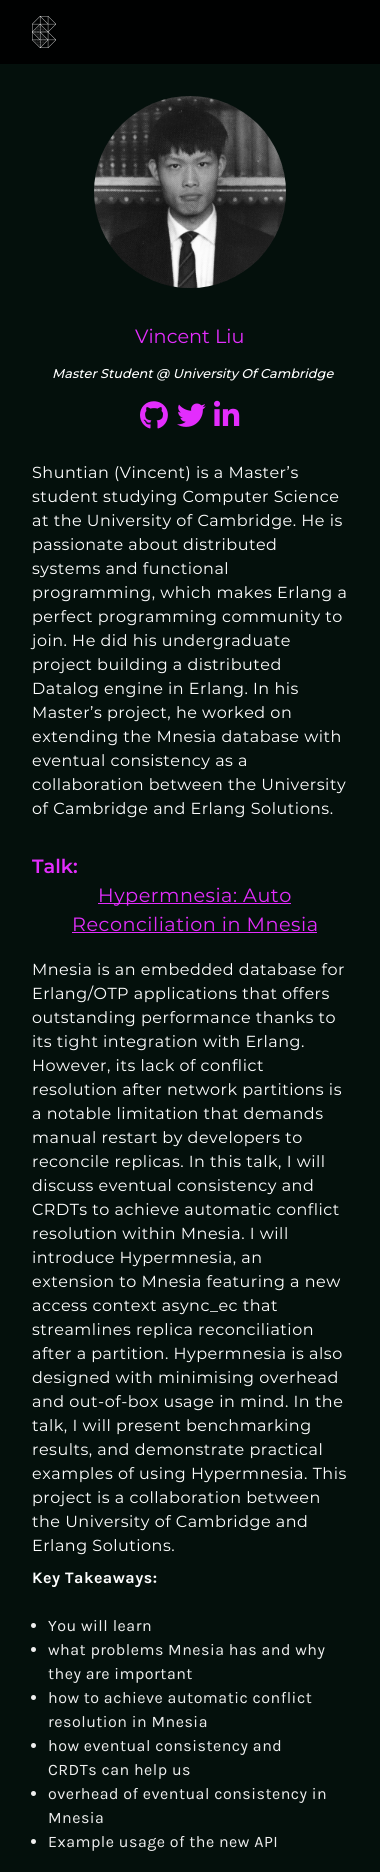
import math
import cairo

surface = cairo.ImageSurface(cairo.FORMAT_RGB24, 380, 1872)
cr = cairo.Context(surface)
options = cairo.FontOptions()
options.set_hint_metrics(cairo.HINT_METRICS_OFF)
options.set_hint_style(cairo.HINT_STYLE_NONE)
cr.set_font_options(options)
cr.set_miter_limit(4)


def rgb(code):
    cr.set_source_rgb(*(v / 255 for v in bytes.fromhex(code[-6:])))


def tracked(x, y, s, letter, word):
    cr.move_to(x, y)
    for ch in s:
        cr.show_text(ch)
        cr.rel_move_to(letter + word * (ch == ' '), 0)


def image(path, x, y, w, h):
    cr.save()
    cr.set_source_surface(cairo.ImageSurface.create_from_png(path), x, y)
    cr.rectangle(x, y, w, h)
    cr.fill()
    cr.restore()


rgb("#04100c")
cr.paint()
rgb("#000101")
cr.rectangle(0, 0, 380, 64)
cr.fill()
image("img/1.png", 32, 16, 24, 32)
image("img/2.png", 94, 96, 192, 192)
image("img/3.png", 140, 401, 28, 28)
image("img/4.png", 177, 403, 29, 24)
image("img/5.png", 214, 400, 26, 26)
rgb("#e32dfd")
cr.rectangle(98, 903, 193, 1)
cr.fill()
cr.rectangle(72, 932, 245, 1)
cr.fill()
rgb("#efefef")
cr.arc(33.5, 1625.5, 2.5, 0, 2 * math.pi)
cr.fill()
cr.arc(33.5, 1649.5, 2.5, 0, 2 * math.pi)
cr.fill()
cr.arc(33.5, 1697.5, 2.5, 0, 2 * math.pi)
cr.fill()
cr.arc(33.5, 1745.5, 2.5, 0, 2 * math.pi)
cr.fill()
cr.arc(33.5, 1793.5, 2.5, 0, 2 * math.pi)
cr.fill()
cr.arc(33.5, 1841.5, 2.5, 0, 2 * math.pi)
cr.fill()
cr.select_font_face("Montserrat")
cr.set_font_size(19.25)
rgb("#e32dfd")
cr.move_to(135, 343)
cr.show_text("Vincent Liu")
cr.select_font_face("Montserrat Medium", cairo.FONT_SLANT_ITALIC)
cr.set_font_size(12.8)
rgb("#ffffff")
cr.move_to(52, 378)
cr.show_text("Master Student @ University Of Cambridge")
cr.select_font_face("Montserrat")
cr.set_font_size(16)
for x, y, s in [
    (32, 478, "Shuntian (Vincent) is a Master’s"),
    (32, 502, "student studying Computer Science"),
    (32, 526, "at the University of Cambridge. He is"),
    (32, 550, "passionate about distributed"),
    (32, 574, "systems and functional"),
    (32, 598, "programming, which makes Erlang a"),
    (32, 622, "perfect programming community to"),
    (32, 646, "join. He did his undergraduate"),
    (32, 670, "project building a distributed"),
    (32, 694, "Datalog engine in Erlang. In his"),
    (32, 718, "Master’s project, he worked on"),
    (32, 742, "extending the Mnesia database with"),
    (32, 766, "eventual consistency as a"),
    (32, 790, "collaboration between the University"),
    (32, 814, "of Cambridge and Erlang Solutions."),
]:
    tracked(x, y, s, 0.5, 0)
cr.select_font_face("Montserrat SemiBold")
cr.set_font_size(19.25)
rgb("#e32dfd")
cr.move_to(32, 873)
cr.show_text("Talk:")
cr.select_font_face("Montserrat")
tracked(98, 902, "Hypermnesia: Auto", 0.5, 0)
tracked(72, 931, "Reconciliation in Mnesia", 0.5, 0)
cr.set_font_size(16)
rgb("#ffffff")
for x, y, s in [
    (32, 975, "Mnesia is an embedded database for"),
    (32, 999, "Erlang/OTP applications that offers"),
    (32, 1023, "outstanding performance thanks to"),
    (32, 1047, "its tight integration with Erlang."),
    (32, 1071, "However, its lack of conflict"),
    (32, 1095, "resolution after network partitions is"),
    (32, 1119, "a notable limitation that demands"),
    (32, 1143, "manual restart by developers to"),
    (32, 1167, "reconcile replicas. In this talk, I will"),
    (32, 1191, "discuss eventual consistency and"),
    (32, 1215, "CRDTs to achieve automatic conflict"),
    (32, 1239, "resolution within Mnesia. I will"),
    (32, 1263, "introduce Hypermnesia, an"),
    (32, 1287, "extension to Mnesia featuring a new"),
    (32, 1311, "access context async_ec that"),
    (32, 1335, "streamlines replica reconciliation"),
    (32, 1359, "after a partition. Hypermnesia is also"),
    (32, 1383, "designed with minimising overhead"),
    (32, 1407, "and out-of-box usage in mind. In the"),
    (32, 1431, "talk, I will present benchmarking"),
    (32, 1455, "results, and demonstrate practical"),
    (32, 1479, "examples of using Hypermnesia. This"),
    (32, 1503, "project is a collaboration between"),
    (32, 1527, "the University of Cambridge and"),
    (32, 1551, "Erlang Solutions."),
]:
    tracked(x, y, s, 0.5, 0)
cr.select_font_face("Karla", cairo.FONT_SLANT_NORMAL, cairo.FONT_WEIGHT_BOLD)
tracked(32, 1583, "Key Takeaways:", 0.5, 0)
cr.select_font_face("Karla")
rgb("#efefef")
for x, y, s in [
    (48, 1631, "You will learn"),
    (48, 1655, "what problems Mnesia has and why"),
    (48, 1679, "they are important"),
    (48, 1703, "how to achieve automatic conflict"),
    (48, 1727, "resolution in Mnesia"),
    (48, 1751, "how eventual consistency and"),
    (48, 1775, "CRDTs can help us"),
    (48, 1799, "overhead of eventual consistency in"),
    (48, 1823, "Mnesia"),
    (48, 1847, "Example usage of the new API"),
]:
    tracked(x, y, s, 0.5, 0)
surface.write_to_png("page.png")
